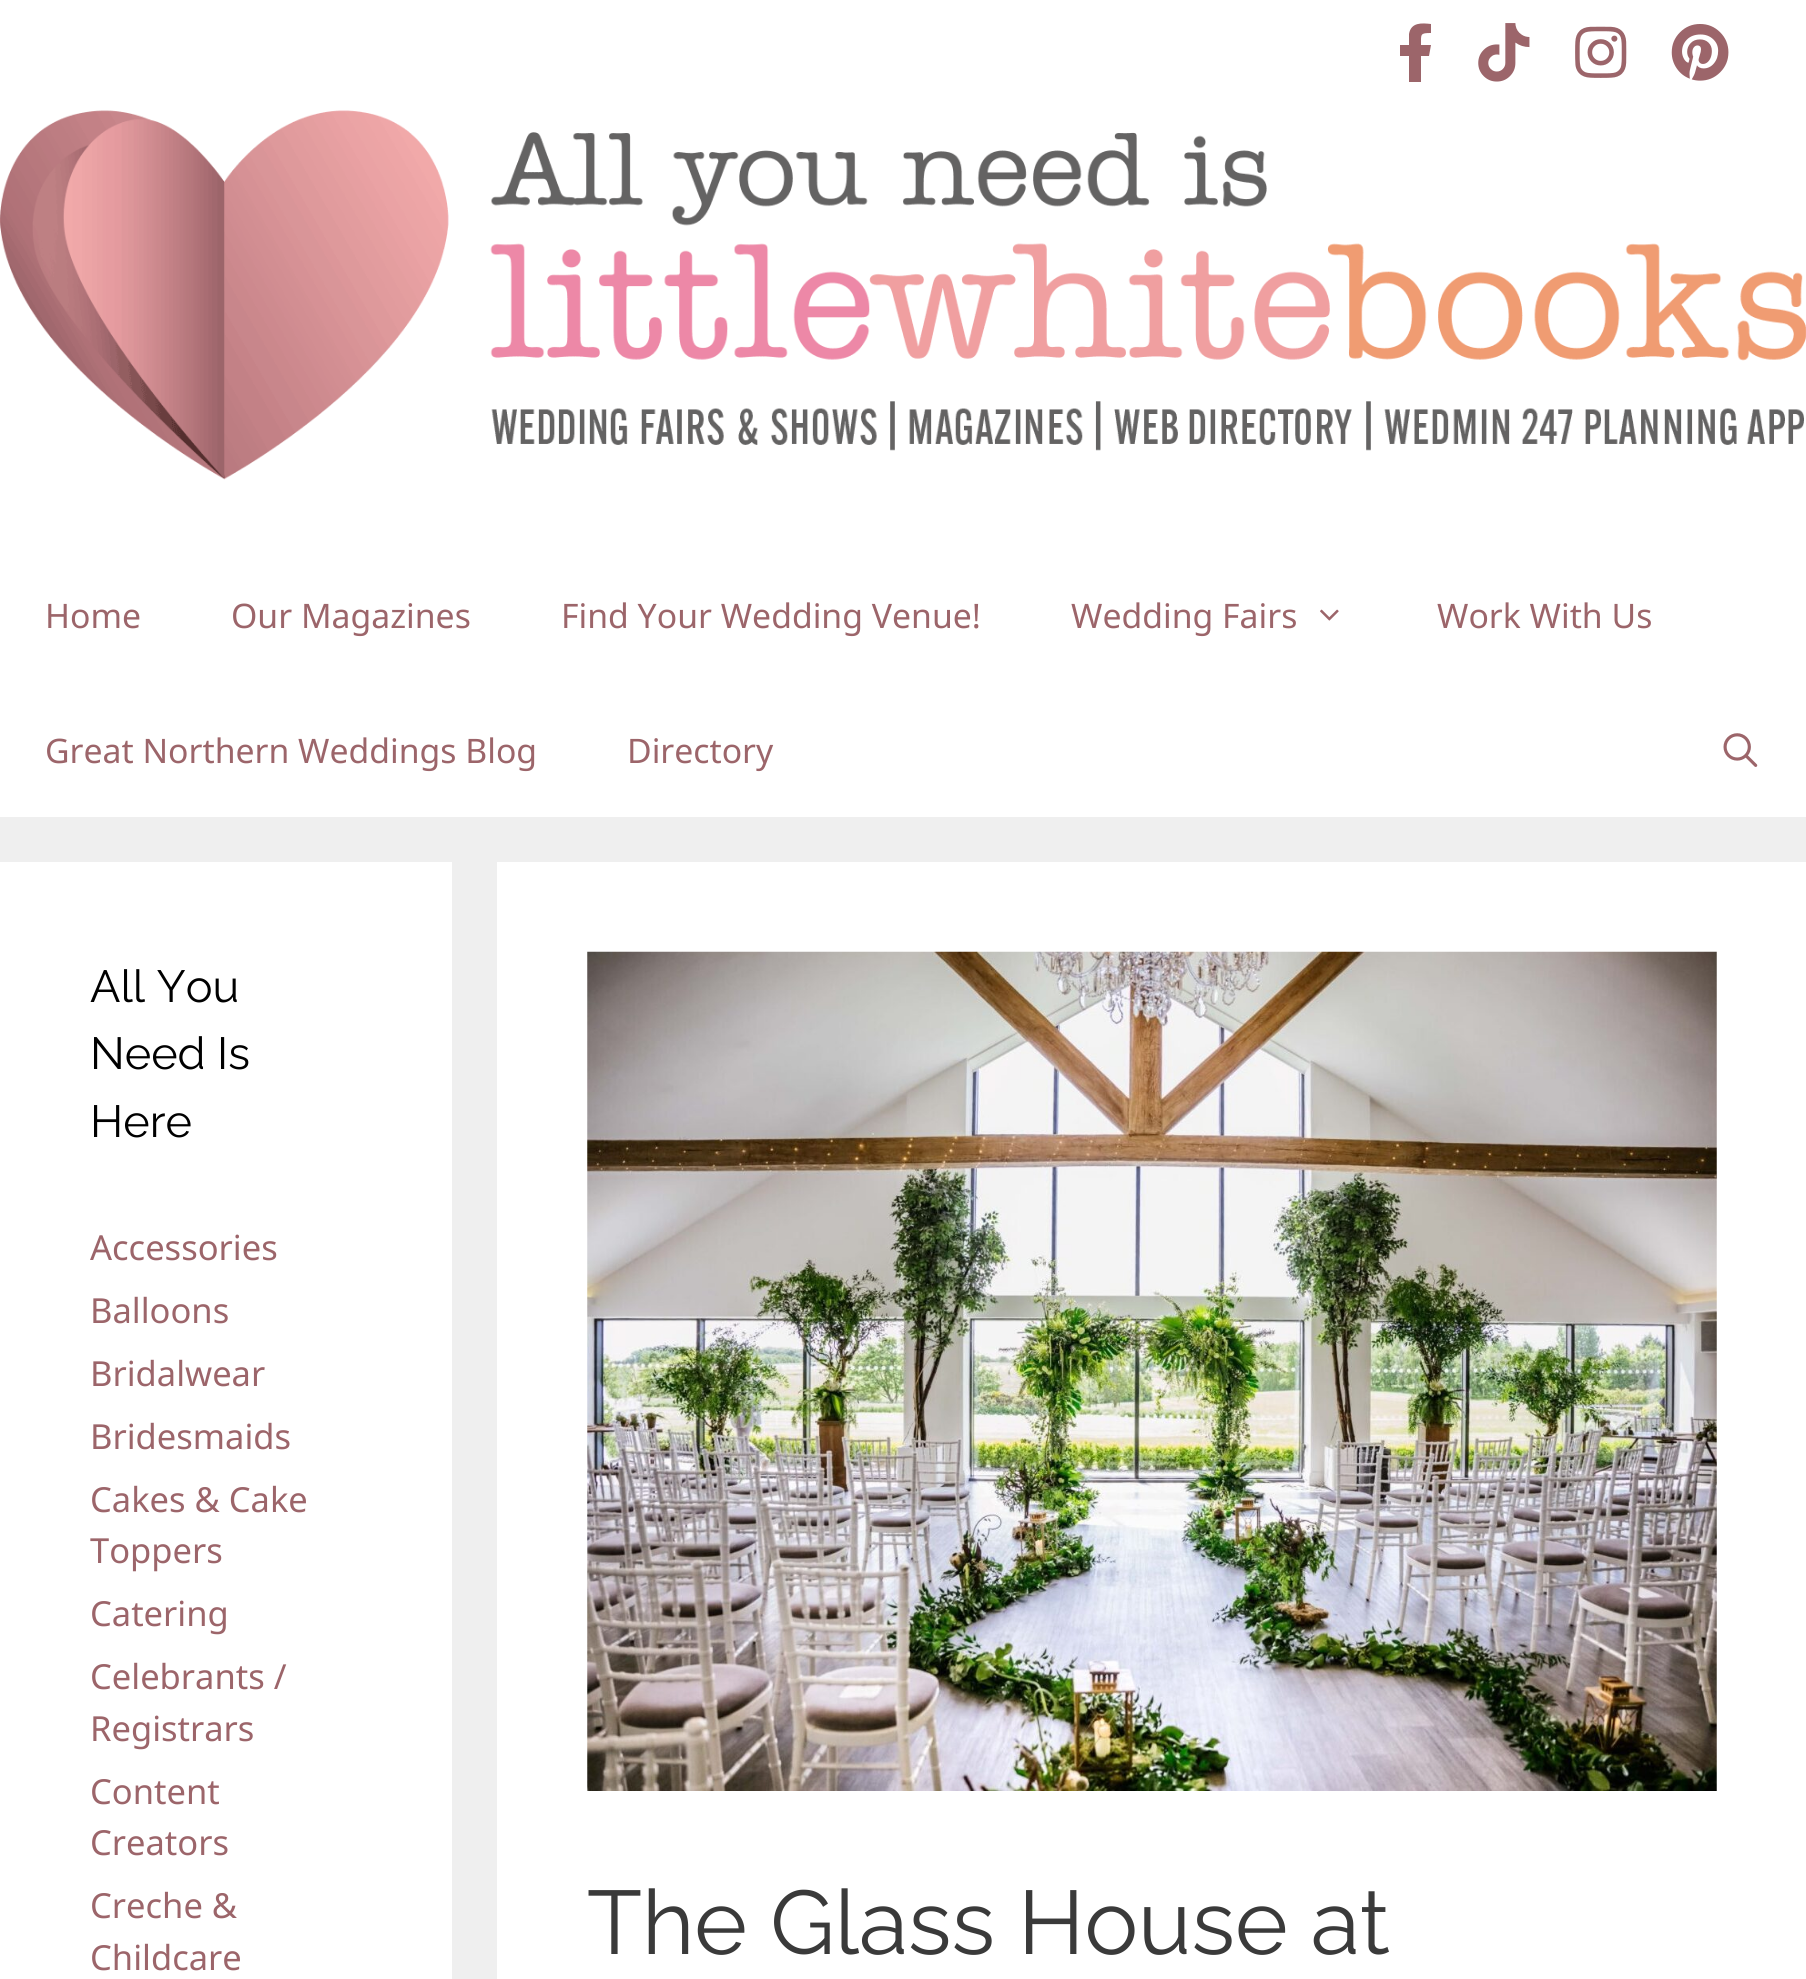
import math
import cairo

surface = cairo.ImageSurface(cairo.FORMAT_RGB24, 1806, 1979)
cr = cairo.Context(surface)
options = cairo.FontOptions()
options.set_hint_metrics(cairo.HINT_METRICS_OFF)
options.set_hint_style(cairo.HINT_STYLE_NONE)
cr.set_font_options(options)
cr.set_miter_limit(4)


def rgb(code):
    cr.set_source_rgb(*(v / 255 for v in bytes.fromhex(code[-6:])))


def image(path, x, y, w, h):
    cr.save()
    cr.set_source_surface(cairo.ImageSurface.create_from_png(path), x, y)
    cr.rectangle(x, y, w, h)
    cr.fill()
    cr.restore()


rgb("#efefef")
cr.paint()
rgb("#ffffff")
cr.rectangle(0, 0, 1806, 110)
cr.fill()
rgb("#9c656a")
cr.new_path()
cr.move_to(1429, 56)
cr.line_to(1421, 56)
cr.line_to(1421, 82)
cr.line_to(1409, 82)
cr.line_to(1409, 56)
cr.line_to(1400, 56)
cr.line_to(1400, 45)
cr.line_to(1409, 45)
cr.line_to(1409, 34)
cr.curve_to(1411, 22, 1422, 23, 1431, 24)
cr.line_to(1431, 33)
cr.curve_to(1420, 33, 1421, 34, 1421, 45)
cr.line_to(1431, 45)
cr.close_path()
cr.fill()
image("img/1.png", 1478, 23, 52, 59)
image("img/2.png", 1575, 26, 52, 52)
image("img/3.png", 1671, 24, 58, 57)
rgb("#ffffff")
cr.rectangle(0, 110, 1806, 707)
cr.fill()
image("img/4.png", 0, 110, 1806, 370)
image("img/5.png", 1320, 609, 19, 12)
image("img/6.png", 1723, 733, 35, 34)
cr.rectangle(0, 862, 452, 1117)
cr.fill()
cr.rectangle(497, 862, 1309, 1117)
cr.fill()
image("img/7.png", 587, 951, 1130, 840)
cr.select_font_face("Noto Sans")
cr.set_font_size(33.75)
rgb("#9c656a")
for x, y, s in [
    (45, 628, "Home"),
    (231, 628, "Our Magazines"),
    (561, 628, "Find Your Wedding Venue!"),
    (1071, 628, "Wedding Fairs"),
    (1437, 628, "Work With Us"),
    (45, 763, "Great Northern Weddings Blog"),
    (627, 763, "Directory"),
]:
    cr.move_to(x, y)
    cr.show_text(s)
cr.select_font_face("Raleway")
cr.set_font_size(45)
rgb("#000000")
for x, y, s in [
    (90, 1002, "All You"),
    (90, 1069, "Need Is"),
    (90, 1137, "Here"),
]:
    cr.move_to(x, y)
    cr.show_text(s)
cr.select_font_face("Noto Sans")
cr.set_font_size(34.5)
rgb("#9c656a")
for x, y, s in [
    (90, 1260, "Accessories"),
    (90, 1323, "Balloons"),
    (90, 1386, "Bridalwear"),
    (90, 1449, "Bridesmaids"),
    (90, 1512, "Cakes & Cake"),
    (90, 1563, "Toppers"),
    (90, 1626, "Catering"),
    (90, 1689, "Celebrants /"),
    (90, 1741, "Registrars"),
    (90, 1804, "Content"),
    (90, 1855, "Creators"),
    (90, 1918, "Creche &"),
    (90, 1970, "Childcare"),
]:
    cr.move_to(x, y)
    cr.show_text(s)
cr.select_font_face("Raleway")
cr.set_font_size(90)
rgb("#3a3a3a")
cr.move_to(587, 1954)
cr.show_text("The Glass House at")
surface.write_to_png("page.png")
